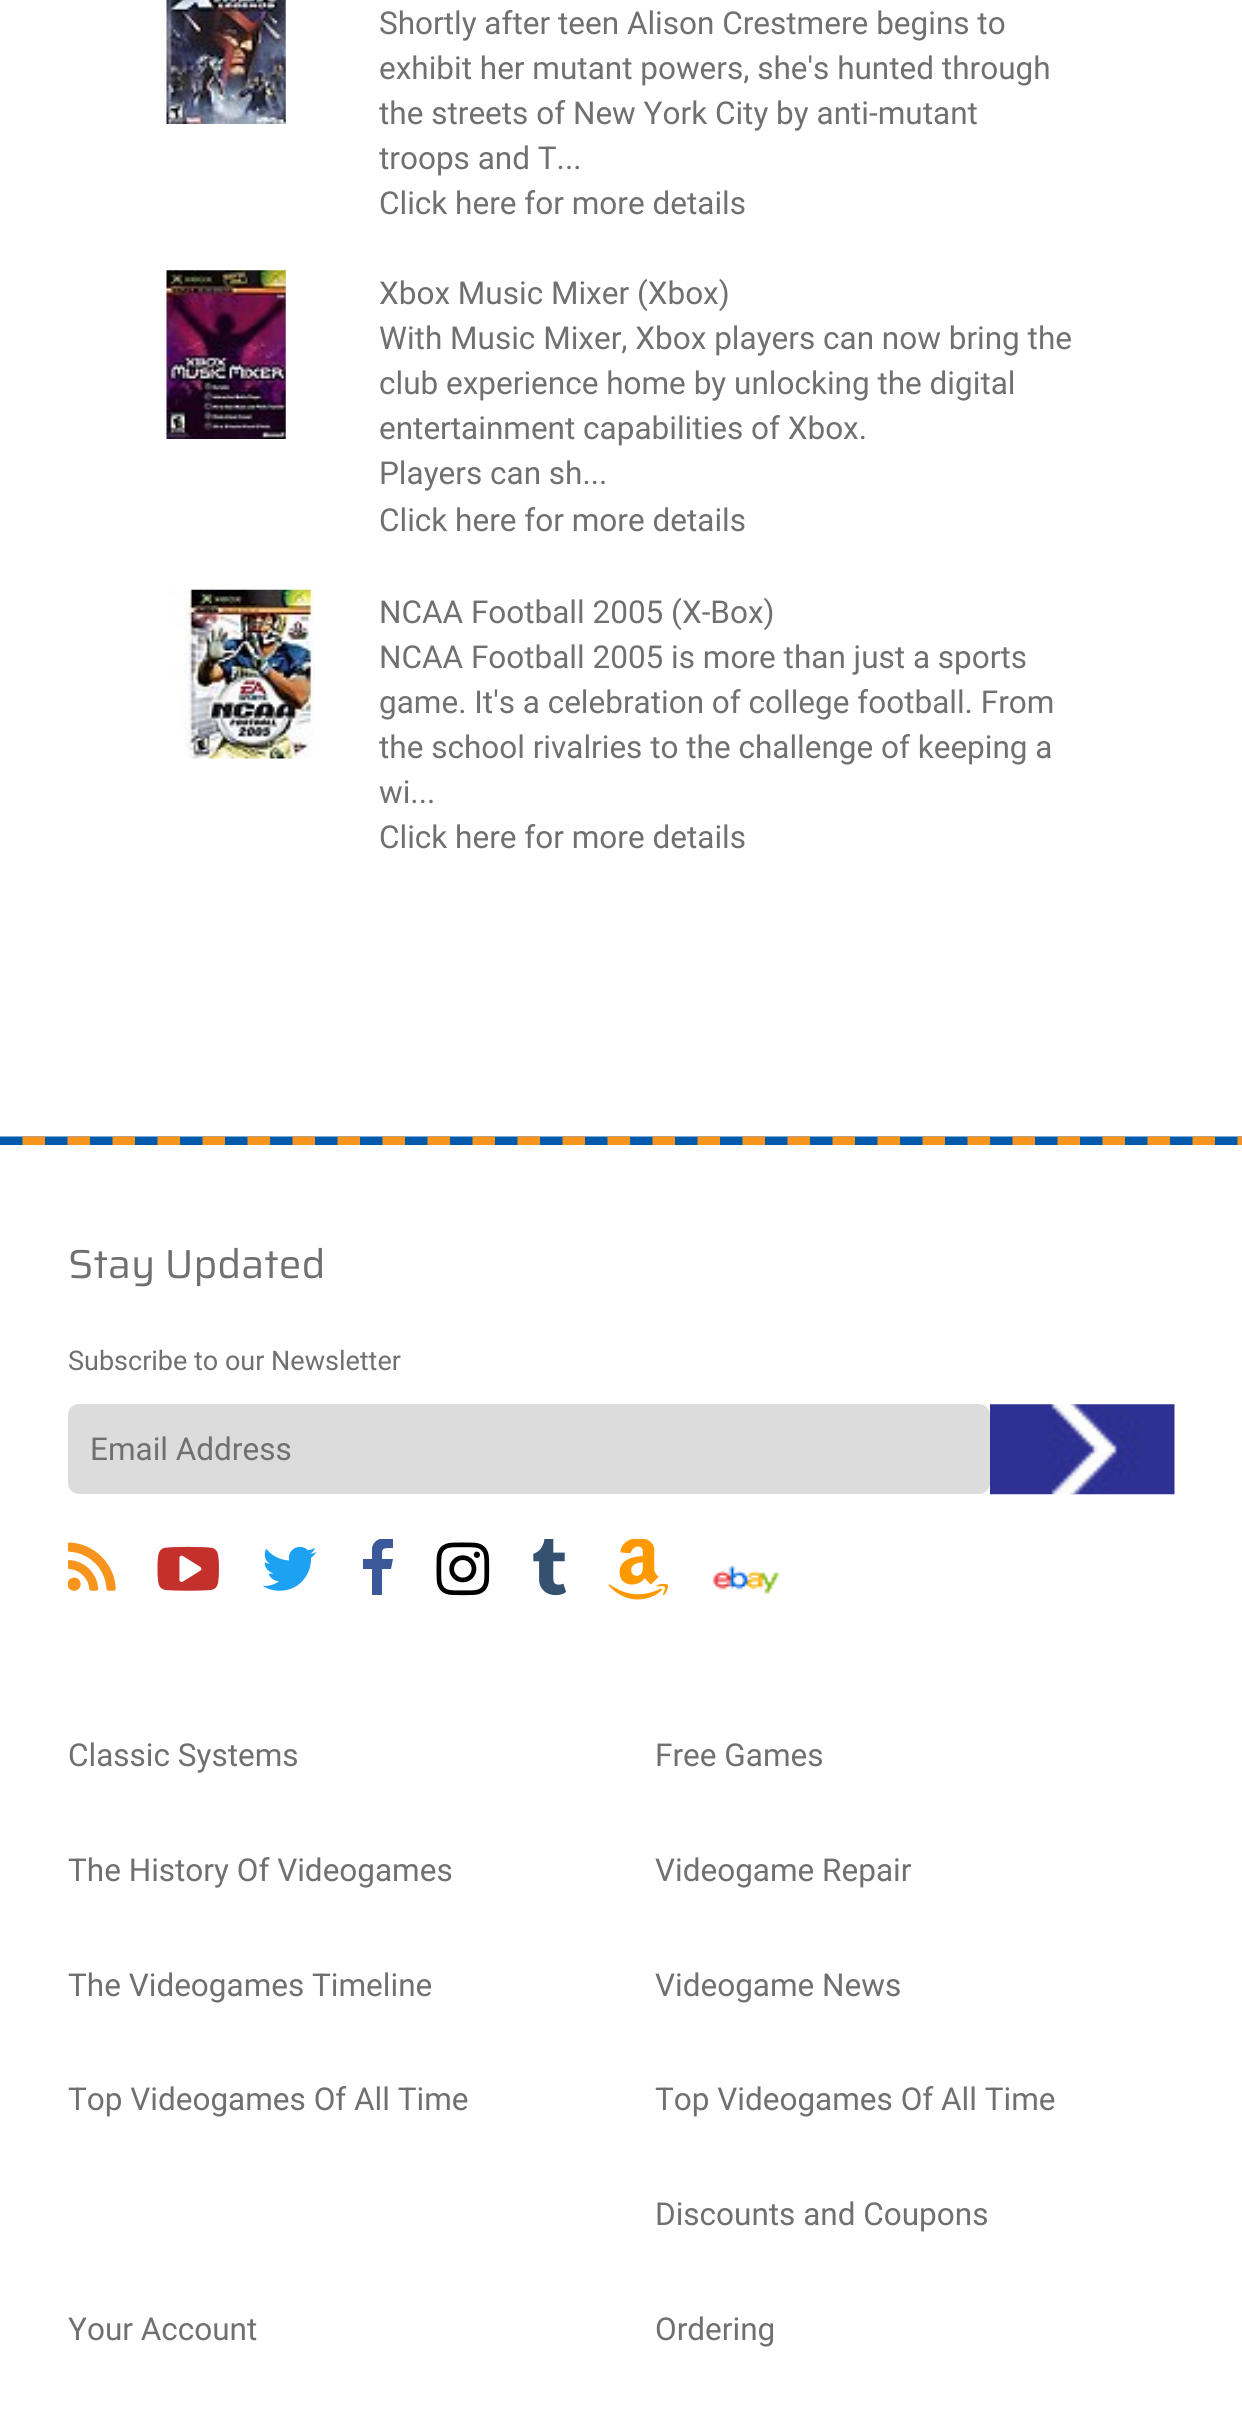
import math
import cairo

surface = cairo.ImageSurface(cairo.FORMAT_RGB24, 1242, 2417)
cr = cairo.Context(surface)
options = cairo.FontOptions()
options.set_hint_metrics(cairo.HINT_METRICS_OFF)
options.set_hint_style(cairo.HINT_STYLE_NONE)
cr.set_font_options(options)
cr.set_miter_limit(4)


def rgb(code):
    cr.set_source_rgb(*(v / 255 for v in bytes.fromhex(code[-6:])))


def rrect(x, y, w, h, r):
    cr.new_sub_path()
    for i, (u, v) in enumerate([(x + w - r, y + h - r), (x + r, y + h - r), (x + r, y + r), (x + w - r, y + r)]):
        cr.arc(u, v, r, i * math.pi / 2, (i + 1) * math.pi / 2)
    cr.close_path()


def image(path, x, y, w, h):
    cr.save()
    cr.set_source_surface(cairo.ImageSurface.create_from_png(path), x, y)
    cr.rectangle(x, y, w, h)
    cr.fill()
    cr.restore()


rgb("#ffffff")
cr.paint()
image("img/1.png", 166, 0, 120, 124)
image("img/2.png", 166, 270, 120, 169)
image("img/3.png", 167, 589, 148, 170)
cr.save()
cr.rectangle(0, 1130, 1242, 15)
cr.clip()
cr.new_path()
cr.move_to(0, 1141)
cr.line_to(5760, 1141)
rgb("#005aab")
cr.set_line_width(9)
cr.stroke()
cr.new_path()
cr.move_to(0, 1141)
cr.line_to(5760, 1141)
rgb("#f7941d")
cr.set_dash([0, 22.5, 22.5, 22.5, 22.5, 0])
cr.stroke()
cr.restore()
rgb("#dcdcdc")
rrect(68, 1404, 922, 90, 11)
cr.fill()
image("img/4.png", 990, 1404, 185, 91)
image("img/5.png", 68, 1542, 48, 49)
image("img/6.png", 157, 1546, 62, 45)
image("img/7.png", 262, 1546, 55, 45)
cr.save()
cr.rectangle(68, 1539, 1107, 70)
cr.clip()
rgb("#3b5998")
cr.new_path()
cr.move_to(393, 1539)
cr.line_to(393, 1548)
cr.curve_to(381, 1548, 382, 1548, 382, 1559)
cr.line_to(393, 1559)
cr.line_to(391, 1569)
cr.line_to(382, 1569)
cr.line_to(382, 1595)
cr.line_to(372, 1595)
cr.line_to(372, 1569)
cr.line_to(363, 1569)
cr.line_to(363, 1559)
cr.line_to(372, 1559)
cr.line_to(372, 1548)
cr.curve_to(374, 1538, 384, 1537, 393, 1539)
cr.close_path()
cr.fill()
cr.restore()
image("img/8.png", 436, 1542, 54, 54)
image("img/9.png", 533, 1539, 33, 57)
image("img/10.png", 608, 1539, 60, 61)
image("img/11.png", 712, 1565, 68, 29)
cr.select_font_face("Roboto")
cr.set_font_size(31.5)
rgb("#707070")
for x, y, s in [
    (379, 34, "Shortly after teen Alison Crestmere begins to"),
    (379, 79, "exhibit her mutant powers, she's hunted through"),
    (379, 124, "the streets of New York City by anti-mutant"),
    (379, 169, "troops and T..."),
    (379, 214, "Click here for more details"),
    (379, 304, "Xbox Music Mixer (Xbox)"),
    (379, 349, "With Music Mixer, Xbox players can now bring the"),
    (379, 394, "club experience home by unlocking the digital"),
    (379, 439, "entertainment capabilities of Xbox."),
    (379, 484, "Players can sh..."),
    (379, 531, "Click here for more details"),
    (379, 623, "NCAA Football 2005 (X-Box)"),
    (379, 668, "NCAA Football 2005 is more than just a sports"),
    (379, 713, "game. It's a celebration of college football. From"),
    (379, 758, "the school rivalries to the challenge of keeping a"),
    (379, 803, "wi..."),
    (379, 848, "Click here for more details"),
]:
    cr.move_to(x, y)
    cr.show_text(s)
cr.select_font_face("Saira")
cr.set_font_size(40.5)
cr.move_to(68, 1278)
cr.show_text("Stay Updated")
cr.select_font_face("Roboto")
cr.set_font_size(27)
cr.move_to(68, 1370)
cr.show_text("Subscribe to our Newsletter")
cr.set_font_size(31.5)
for x, y, s in [
    (90, 1460, "Email Address"),
    (68, 1766, "Classic Systems"),
    (68, 1881, "The History Of Videogames"),
    (68, 1996, "The Videogames Timeline"),
    (68, 2110, "Top Videogames Of All Time"),
    (655, 1766, "Free Games"),
    (655, 1881, "Videogame Repair"),
    (655, 1996, "Videogame News"),
    (655, 2110, "Top Videogames Of All Time"),
    (655, 2225, "Discounts and Coupons"),
    (68, 2340, "Your Account"),
    (655, 2340, "Ordering"),
]:
    cr.move_to(x, y)
    cr.show_text(s)
surface.write_to_png("page.png")
